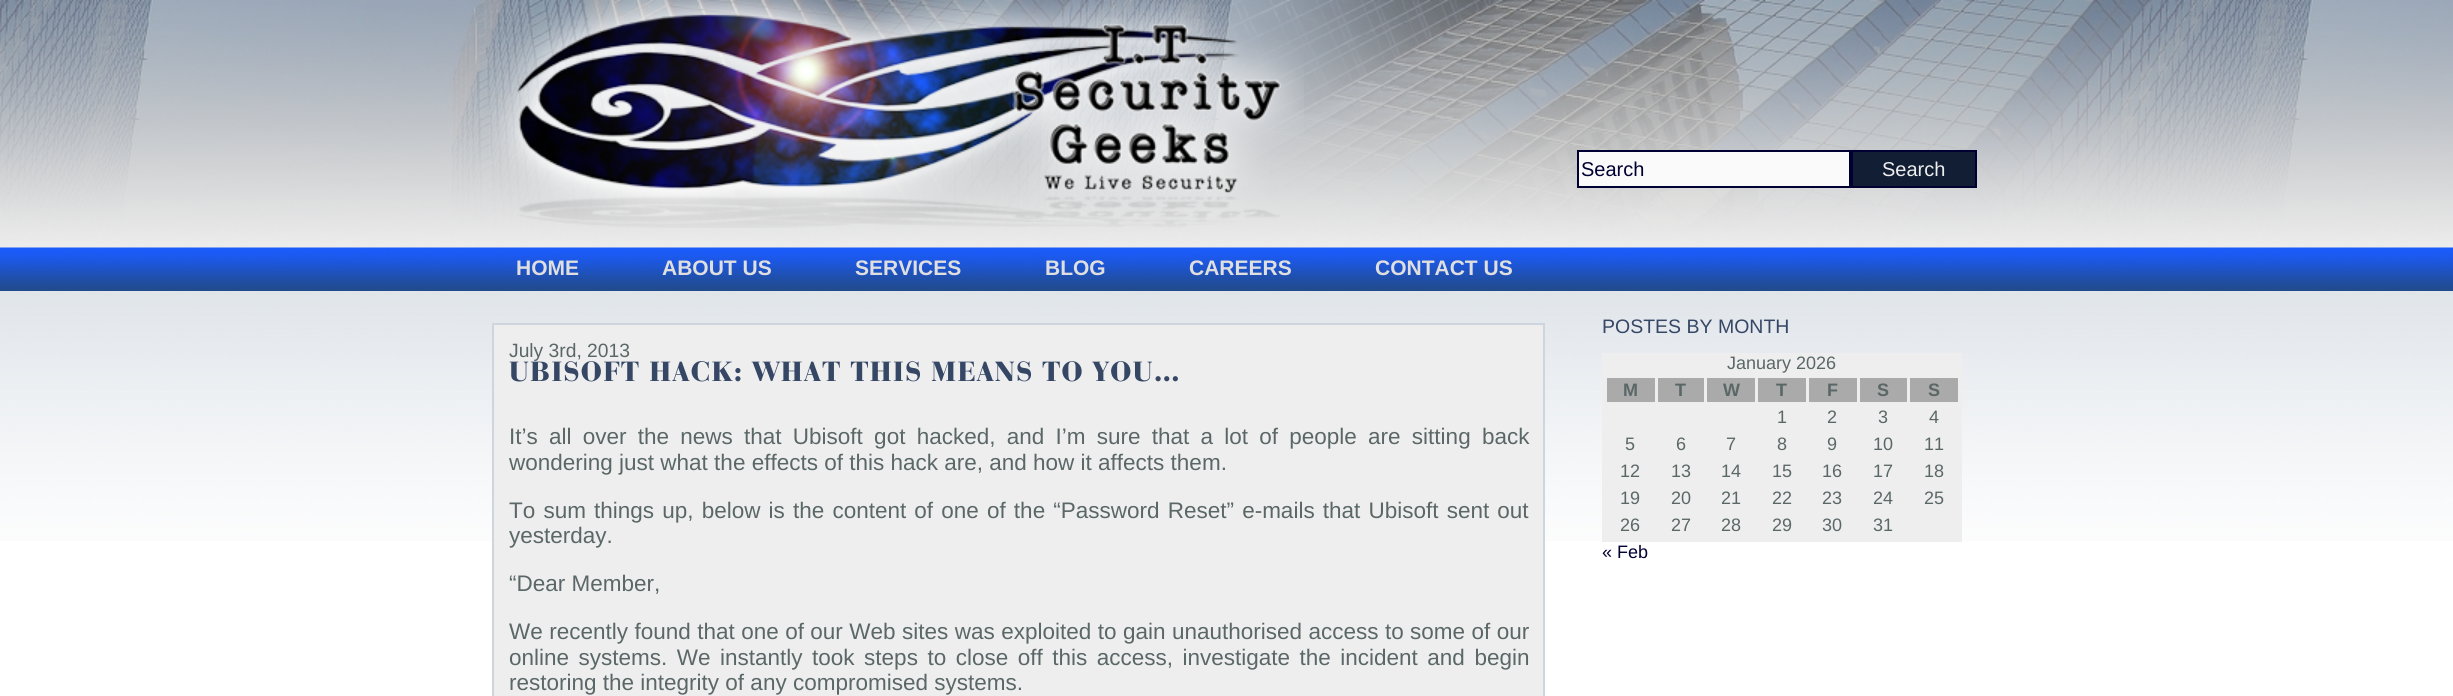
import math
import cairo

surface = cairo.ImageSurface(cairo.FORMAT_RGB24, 2453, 696)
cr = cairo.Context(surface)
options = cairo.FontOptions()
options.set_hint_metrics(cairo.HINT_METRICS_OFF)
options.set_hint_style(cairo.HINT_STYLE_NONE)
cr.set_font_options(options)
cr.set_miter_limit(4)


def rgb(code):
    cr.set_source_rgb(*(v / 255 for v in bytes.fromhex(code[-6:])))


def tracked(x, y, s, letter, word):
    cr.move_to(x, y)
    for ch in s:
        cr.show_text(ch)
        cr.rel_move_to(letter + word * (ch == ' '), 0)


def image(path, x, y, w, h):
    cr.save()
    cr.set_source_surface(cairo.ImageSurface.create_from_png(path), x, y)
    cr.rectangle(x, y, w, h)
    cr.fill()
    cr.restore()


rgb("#ffffff")
cr.paint()
image("img/1.png", 0, 291, 2453, 250)
image("img/2.png", 0, 0, 2453, 248)
image("img/3.png", 489, 0, 815, 228)
rgb("#fafafa")
cr.rectangle(1578, 151, 272, 36)
cr.fill_preserve()
rgb("#000033")
cr.stroke()
rgb("#111e33")
cr.rectangle(1852, 151, 124, 36)
cr.fill_preserve()
rgb("#000033")
cr.stroke()
image("img/4.png", 0, 247, 2453, 44)
rgb("#eeeeee")
cr.rectangle(493, 324, 1051, 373)
cr.fill_preserve()
rgb("#ced5df")
cr.stroke()
for x, y, w, h, color in [
    (1602, 353, 360, 189, "#eeeeee"),
    (1607, 378, 48, 24, "#aaaaaa"),
    (1658, 378, 46, 24, "#aaaaaa"),
    (1707, 378, 48, 24, "#aaaaaa"),
    (1758, 378, 48, 24, "#aaaaaa"),
    (1809, 378, 48, 24, "#aaaaaa"),
    (1860, 378, 47, 24, "#aaaaaa"),
    (1910, 378, 48, 24, "#aaaaaa"),
]:
    rgb(color)
    cr.rectangle(x, y, w, h)
    cr.fill()
cr.select_font_face("Liberation Sans")
cr.set_font_size(20)
rgb("#000033")
cr.move_to(1581, 176)
cr.show_text("Search")
rgb("#eeeeee")
cr.move_to(1882, 176)
cr.show_text("Search")
cr.select_font_face("Liberation Sans", cairo.FONT_SLANT_NORMAL, cairo.FONT_WEIGHT_BOLD)
cr.set_font_size(21)
rgb("#dfdfdf")
for x, y, s in [
    (516, 275, "HOME"),
    (662, 275, "ABOUT US"),
    (855, 275, "SERVICES"),
    (1045, 275, "BLOG"),
    (1189, 275, "CAREERS"),
    (1375, 275, "CONTACT US"),
]:
    cr.move_to(x, y)
    cr.show_text(s)
cr.select_font_face("Liberation Sans")
cr.set_font_size(19.25)
rgb("#5b6767")
cr.move_to(509, 357)
cr.show_text("July 3rd, 2013")
cr.select_font_face("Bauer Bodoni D", cairo.FONT_SLANT_NORMAL, cairo.FONT_WEIGHT_BOLD)
cr.set_font_size(24)
rgb("#354765")
tracked(509, 381, "UBISOFT HACK: WHAT THIS MEANS TO YOU…", 1.5, 0)
cr.select_font_face("Liberation Sans")
cr.set_font_size(22.5)
rgb("#5b6767")
tracked(509, 444, "It’s all over the news that Ubisoft got hacked, and I’m sure that a lot of people are sitting back", 0, 5)
cr.move_to(509, 470)
cr.show_text("wondering just what the effects of this hack are, and how it affects them.")
tracked(509, 518, "To sum things up, below is the content of one of the “Password Reset” e-mails that Ubisoft sent out", 0, 1.9)
cr.move_to(509, 543)
cr.show_text("yesterday.")
cr.move_to(509, 591)
cr.show_text("“Dear Member,")
tracked(509, 639, "We recently found that one of our Web sites was exploited to gain unauthorised access to some of our", 0, 0.2)
tracked(509, 665, "online systems. We instantly took steps to close off this access, investigate the incident and begin", 0, 3.25)
cr.move_to(509, 690)
cr.show_text("restoring the integrity of any compromised systems.")
cr.set_font_size(19.5)
rgb("#354765")
cr.move_to(1602, 333)
cr.show_text("POSTES BY MONTH")
cr.set_font_size(18)
rgb("#5b6767")
cr.move_to(1727, 369)
cr.show_text("January 2026")
cr.select_font_face("Liberation Sans", cairo.FONT_SLANT_NORMAL, cairo.FONT_WEIGHT_BOLD)
for x, y, s in [
    (1623, 396, "M"),
    (1675, 396, "T"),
    (1723, 396, "W"),
    (1776, 396, "T"),
    (1827, 396, "F"),
    (1877, 396, "S"),
    (1928, 396, "S"),
]:
    cr.move_to(x, y)
    cr.show_text(s)
cr.select_font_face("Liberation Sans")
for x, y, s in [
    (1777, 423, "1"),
    (1827, 423, "2"),
    (1878, 423, "3"),
    (1929, 423, "4"),
    (1625, 450, "5"),
    (1676, 450, "6"),
    (1726, 450, "7"),
    (1777, 450, "8"),
    (1827, 450, "9"),
    (1873, 450, "10"),
    (1924, 450, "11"),
    (1620, 477, "12"),
    (1671, 477, "13"),
    (1721, 477, "14"),
    (1772, 477, "15"),
    (1822, 477, "16"),
    (1873, 477, "17"),
    (1924, 477, "18"),
    (1620, 504, "19"),
    (1671, 504, "20"),
    (1721, 504, "21"),
    (1772, 504, "22"),
    (1822, 504, "23"),
    (1873, 504, "24"),
    (1924, 504, "25"),
    (1620, 531, "26"),
    (1671, 531, "27"),
    (1721, 531, "28"),
    (1772, 531, "29"),
    (1822, 531, "30"),
    (1873, 531, "31"),
]:
    cr.move_to(x, y)
    cr.show_text(s)
rgb("#000033")
cr.move_to(1602, 558)
cr.show_text("« Feb")
surface.write_to_png("page.png")
